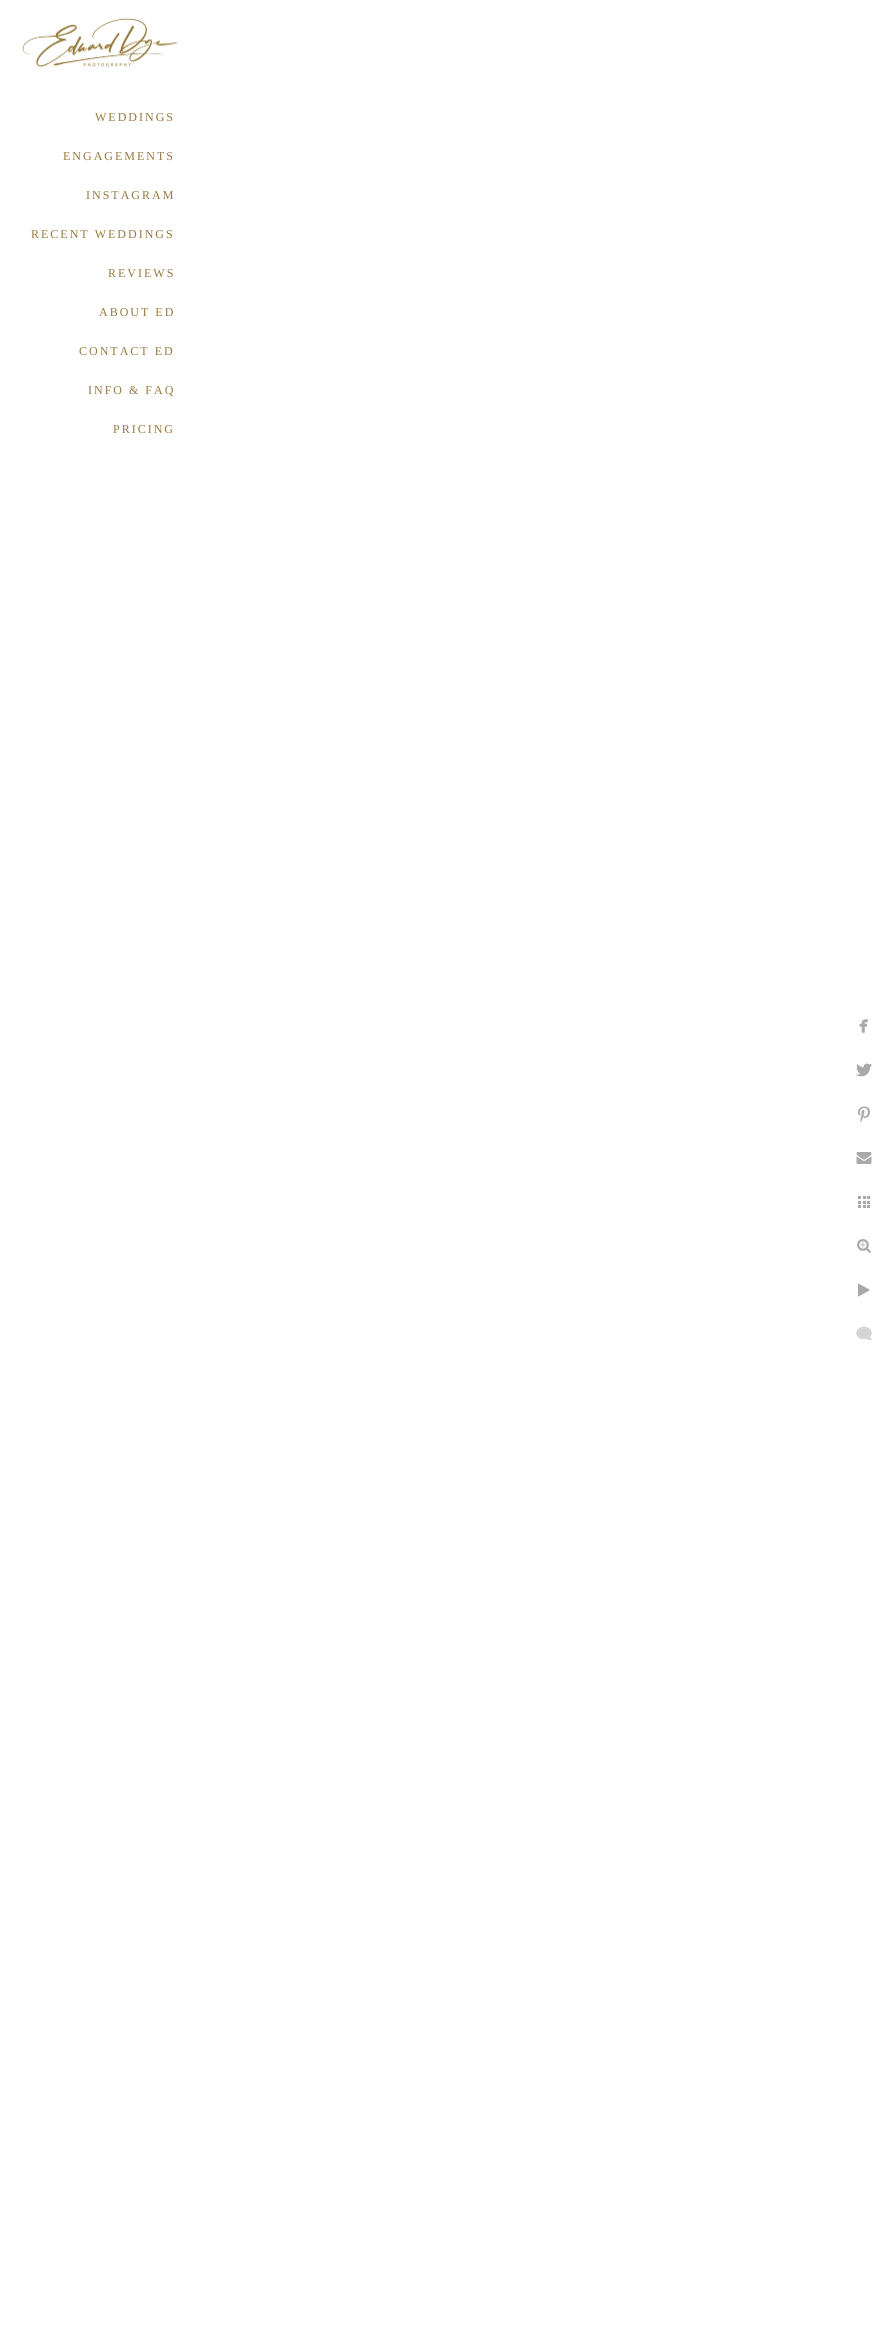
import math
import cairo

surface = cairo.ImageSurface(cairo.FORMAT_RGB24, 891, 2339)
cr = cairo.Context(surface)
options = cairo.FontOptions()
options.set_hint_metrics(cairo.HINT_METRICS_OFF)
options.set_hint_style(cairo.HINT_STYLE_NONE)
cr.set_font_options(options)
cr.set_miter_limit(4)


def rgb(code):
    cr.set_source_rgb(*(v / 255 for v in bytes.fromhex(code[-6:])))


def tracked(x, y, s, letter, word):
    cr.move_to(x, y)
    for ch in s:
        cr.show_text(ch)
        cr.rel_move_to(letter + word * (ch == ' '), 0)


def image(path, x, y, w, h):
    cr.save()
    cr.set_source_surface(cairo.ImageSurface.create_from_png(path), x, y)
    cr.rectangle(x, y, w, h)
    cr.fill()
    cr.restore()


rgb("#ffffff")
cr.paint()
image("img/1.png", 22, 18, 156, 51)
image("img/2.png", 859, 1019, 9, 14)
image("img/3.png", 856, 1063, 16, 14)
image("img/4.png", 858, 1106, 12, 16)
image("img/5.png", 856, 1152, 16, 12)
image("img/6.png", 858, 1196, 12, 12)
image("img/7.png", 857, 1239, 14, 14)
image("img/8.png", 858, 1283, 12, 14)
image("img/9.png", 856, 1326, 16, 14)
cr.select_font_face("Liberation Serif")
cr.set_font_size(12)
rgb("#97793e")
for x, y, s in [
    (95, 121, "WEDDINGS"),
    (63, 160, "ENGAGEMENTS"),
    (86, 199, "INSTAGRAM"),
    (31, 238, "RECENT WEDDINGS"),
    (108, 277, "REVIEWS"),
    (99, 316, "ABOUT ED"),
    (79, 355, "CONTACT ED"),
    (88, 394, "INFO & FAQ"),
    (113, 433, "PRICING"),
]:
    tracked(x, y, s, 2, 0)
surface.write_to_png("page.png")
